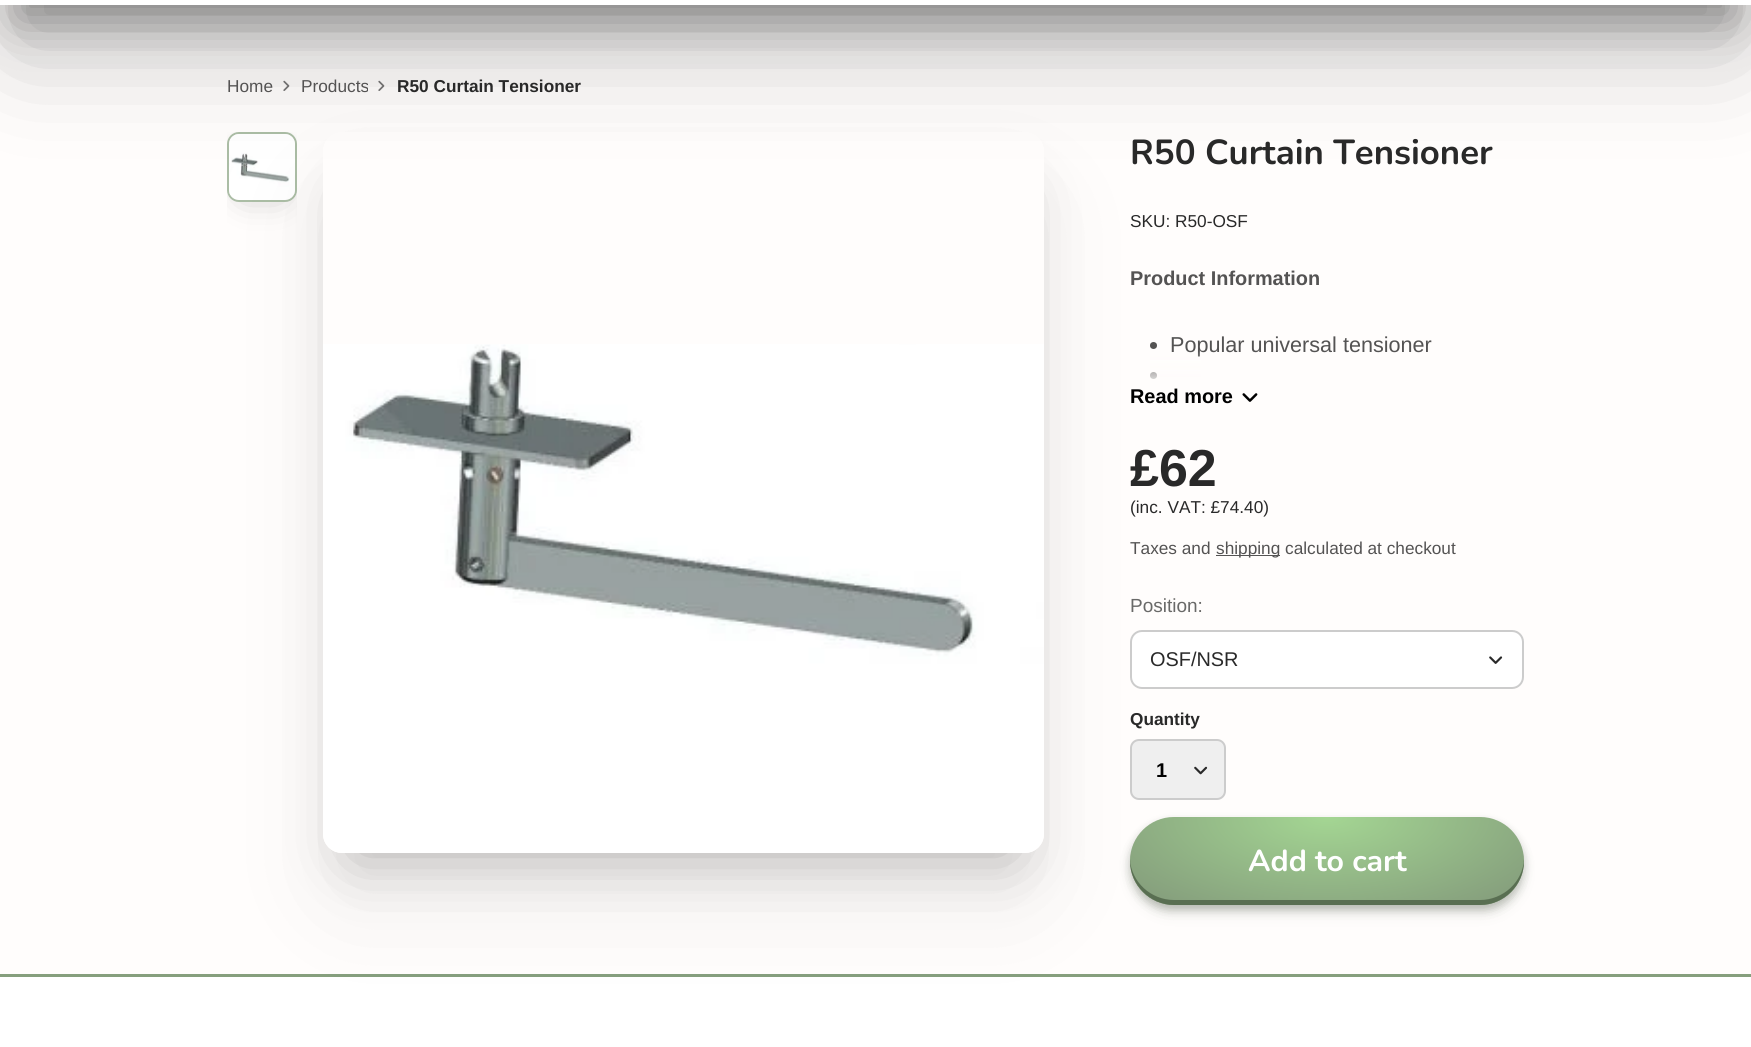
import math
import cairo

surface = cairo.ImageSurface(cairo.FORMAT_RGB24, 1751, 1047)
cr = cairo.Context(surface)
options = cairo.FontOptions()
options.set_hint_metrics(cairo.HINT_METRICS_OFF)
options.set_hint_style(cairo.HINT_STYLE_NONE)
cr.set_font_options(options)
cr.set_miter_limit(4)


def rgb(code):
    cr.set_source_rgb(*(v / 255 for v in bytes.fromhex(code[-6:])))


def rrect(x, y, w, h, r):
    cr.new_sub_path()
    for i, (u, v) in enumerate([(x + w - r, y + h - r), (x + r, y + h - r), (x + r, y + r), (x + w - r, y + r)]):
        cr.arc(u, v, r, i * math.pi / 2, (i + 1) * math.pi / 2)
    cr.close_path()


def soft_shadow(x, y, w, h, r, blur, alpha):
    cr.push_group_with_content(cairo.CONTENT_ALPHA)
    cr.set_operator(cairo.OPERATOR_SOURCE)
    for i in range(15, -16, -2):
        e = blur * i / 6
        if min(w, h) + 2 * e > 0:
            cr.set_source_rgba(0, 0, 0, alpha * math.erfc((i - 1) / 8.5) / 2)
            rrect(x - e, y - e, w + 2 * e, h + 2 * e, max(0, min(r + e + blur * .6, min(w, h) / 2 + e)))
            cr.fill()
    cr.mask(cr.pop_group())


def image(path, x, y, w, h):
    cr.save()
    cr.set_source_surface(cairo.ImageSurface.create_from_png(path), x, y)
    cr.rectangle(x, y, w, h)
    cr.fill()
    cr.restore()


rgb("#fffdfc")
cr.paint()
image("img/1.png", 283, 80, 7, 11)
image("img/1.png", 378, 80, 7, 11)
rgb("#1c1c1c")
soft_shadow(17, -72, 1717, 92, 0, 24, 0.4)
cr.save()
cr.rectangle(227, 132, 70, 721)
cr.clip()
soft_shadow(244, 158, 36, 35, 0, 17.5, 0.3)
cr.restore()
rrect(228, 133, 68, 68, 11)
rgb("#abbda5")
cr.stroke()
image("img/3.png", 229, 134, 66, 66)
rgb("#1c1c1c")
soft_shadow(17, -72, 1717, 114, 0, 54, 0.3)
rgb("#ffffff")
cr.rectangle(0, 0, 1751, 5)
cr.fill()
cr.save()
cr.set_fill_rule(cairo.FILL_RULE_EVEN_ODD)
cr.new_path()
cr.move_to(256, 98)
cr.line_to(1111, 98)
cr.line_to(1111, 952)
cr.line_to(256, 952)
cr.close_path()
cr.move_to(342, 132)
cr.line_to(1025, 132)
cr.curve_to(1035.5, 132, 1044, 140.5, 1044, 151)
cr.line_to(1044, 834)
cr.curve_to(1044, 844.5, 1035.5, 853, 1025, 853)
cr.line_to(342, 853)
cr.curve_to(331.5, 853, 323, 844.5, 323, 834)
cr.line_to(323, 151)
cr.curve_to(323, 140.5, 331.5, 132, 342, 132)
cr.close_path()
cr.clip()
rgb("#1c1c1c")
soft_shadow(355, 197, 657, 656, 0, 32.5, 0.3)
cr.restore()
cr.rectangle(0, 977, 1751, 70)
cr.fill()
rgb("#869f7d")
cr.rectangle(0, 974, 1751, 3)
cr.fill()
cr.save()
cr.set_fill_rule(cairo.FILL_RULE_EVEN_ODD)
cr.new_path()
cr.move_to(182, 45)
cr.line_to(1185, 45)
cr.line_to(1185, 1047)
cr.line_to(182, 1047)
cr.close_path()
cr.move_to(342, 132)
cr.line_to(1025, 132)
cr.curve_to(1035.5, 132, 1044, 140.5, 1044, 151)
cr.line_to(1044, 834)
cr.curve_to(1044, 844.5, 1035.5, 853, 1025, 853)
cr.line_to(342, 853)
cr.curve_to(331.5, 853, 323, 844.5, 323, 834)
cr.line_to(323, 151)
cr.curve_to(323, 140.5, 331.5, 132, 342, 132)
cr.close_path()
cr.clip()
rgb("#1c1c1c")
soft_shadow(345, 208, 677, 677, 0, 54, 0.1)
cr.restore()
image("img/2.png", 323, 344, 721, 509)
rgb("#545353")
cr.arc(1153.5, 345.5, 3.5, 0, 2 * math.pi)
cr.fill()
cr.arc(1153.5, 375.5, 3.5, 0, 2 * math.pi)
cr.fill()
image("img/4.png", 1242, 393, 16, 9)
cr.rectangle(1216, 555, 64, 1)
cr.fill()
rgb("#ffffff")
rrect(1131, 631, 392, 57, 11)
cr.fill_preserve()
rgb("#cccccc")
cr.stroke()
image("img/5.png", 1489, 656, 14, 8)
rgb("#efefef")
rrect(1131, 740, 94, 59, 8)
cr.fill_preserve()
rgb("#cccccc")
cr.stroke()
image("img/6.png", 1194, 766, 14, 9)
rgb("#3d4b38")
soft_shadow(1135, 831, 384, 79, 39.5, 9, 0.15)
soft_shadow(1130, 822, 394, 88, 44, 4.5, 0.3)
cr.save()
rrect(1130, 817, 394, 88, 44)
cr.clip()
soft_shadow(1135, 831, 384, 79, 39.5, 9, 0.15)
soft_shadow(1130, 822, 394, 88, 44, 4.5, 0.3)
cr.restore()
gradient = cairo.RadialGradient(0, 0, 0, 0, 0, 1)
gradient.set_matrix(cairo.Matrix(1 / 279, 0, 0, 1 / 124, -1 * 1327 / 279, -1 * 817 / 124))
gradient.add_color_stop_rgba(0, 0.643, 0.839, 0.576, 1)
gradient.add_color_stop_rgba(0.9, 0.525, 0.624, 0.49, 1)
cr.set_source(gradient)
rrect(1130, 817, 394, 88, 44)
cr.fill()
rgb("#596f52")
cr.new_path()
cr.move_to(1130, 859)
cr.line_to(1130, 861)
cr.curve_to(1130, 885, 1150, 905, 1174, 905)
cr.line_to(1480, 905)
cr.curve_to(1504, 905, 1524, 885, 1524, 861)
cr.line_to(1524, 859)
cr.curve_to(1523, 882, 1503, 900, 1480, 900)
cr.line_to(1174, 900)
cr.curve_to(1151, 900, 1131, 882, 1130, 859)
cr.close_path()
cr.fill()
cr.select_font_face("Liberation Sans")
cr.set_font_size(17.25)
rgb("#545353")
cr.move_to(227, 92)
cr.show_text("Home")
cr.move_to(301, 92)
cr.show_text("Products")
cr.select_font_face("Liberation Sans", cairo.FONT_SLANT_NORMAL, cairo.FONT_WEIGHT_BOLD)
rgb("#292929")
cr.move_to(397, 92)
cr.show_text("R50 Curtain Tensioner")
cr.select_font_face("Nunito", cairo.FONT_SLANT_NORMAL, cairo.FONT_WEIGHT_BOLD)
cr.set_font_size(34.75)
cr.move_to(1130, 164)
cr.show_text("R50 Curtain Tensioner")
cr.select_font_face("Liberation Sans")
cr.set_font_size(17.25)
cr.move_to(1130, 227)
cr.show_text("SKU: R50-OSF")
cr.select_font_face("Liberation Sans", cairo.FONT_SLANT_NORMAL, cairo.FONT_WEIGHT_BOLD)
cr.set_font_size(19.9)
rgb("#545353")
cr.move_to(1130, 285)
cr.show_text("Product Information")
cr.select_font_face("Liberation Sans")
cr.set_font_size(21.6)
cr.move_to(1170, 352)
cr.show_text("Popular universal tensioner")
gradient = cairo.LinearGradient(1327, 408, 1327, 351)
gradient.add_color_stop_rgba(0.35, 1, 0.992, 0.988, 1)
gradient.add_color_stop_rgba(1, 1, 0.992, 0.988, 0)
cr.set_source(gradient)
cr.rectangle(1150, 352, 51, 27)
cr.fill()
cr.select_font_face("Liberation Sans", cairo.FONT_SLANT_NORMAL, cairo.FONT_WEIGHT_BOLD)
cr.set_font_size(19.9)
rgb("#000000")
cr.move_to(1130, 403)
cr.show_text("Read more")
cr.set_font_size(52)
rgb("#292929")
cr.move_to(1130, 486)
cr.show_text("£62")
cr.select_font_face("Liberation Sans")
cr.set_font_size(17.25)
cr.move_to(1130, 513)
cr.show_text("(inc. VAT: £74.40)")
rgb("#545353")
cr.move_to(1130, 554)
cr.show_text("Taxes and")
cr.move_to(1216, 554)
cr.show_text("shipping calculated at checkout")
cr.set_font_size(19)
rgb("#696968")
cr.move_to(1130, 612)
cr.show_text("Position:")
cr.set_font_size(19.9)
rgb("#292929")
cr.move_to(1150, 666)
cr.show_text("OSF/NSR")
cr.select_font_face("Liberation Sans", cairo.FONT_SLANT_NORMAL, cairo.FONT_WEIGHT_BOLD)
cr.set_font_size(17.25)
cr.move_to(1130, 725)
cr.show_text("Quantity")
cr.set_font_size(19.9)
rgb("#000000")
cr.move_to(1156, 777)
cr.show_text("1")
cr.select_font_face("Nunito", cairo.FONT_SLANT_NORMAL, cairo.FONT_WEIGHT_BOLD)
cr.set_font_size(30.25)
rgb("#ffffff")
cr.move_to(1248, 871)
cr.show_text("Add to cart")
surface.write_to_png("page.png")
